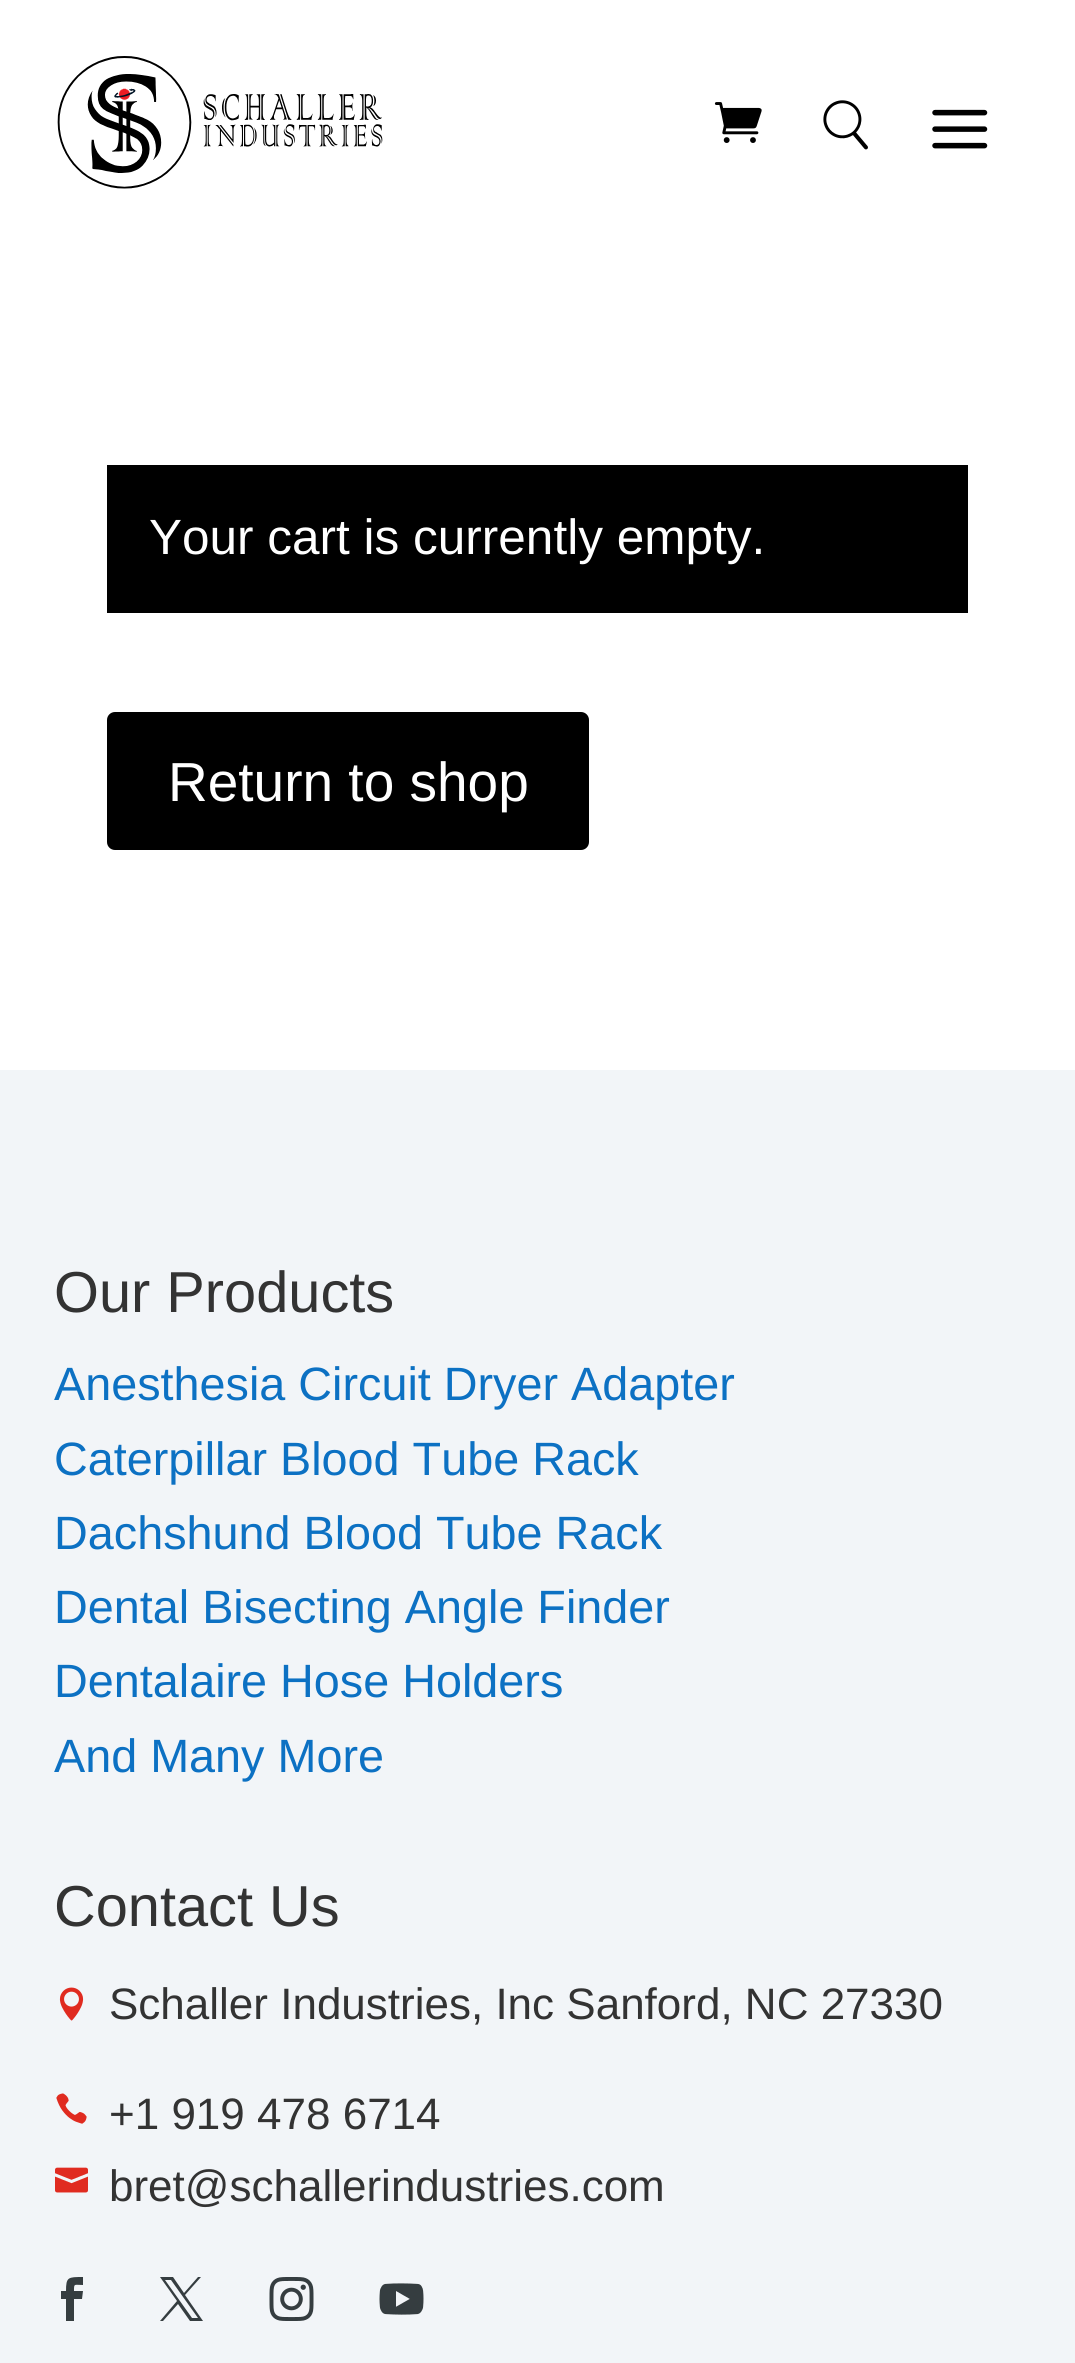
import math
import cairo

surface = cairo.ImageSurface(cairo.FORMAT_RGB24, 1075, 2363)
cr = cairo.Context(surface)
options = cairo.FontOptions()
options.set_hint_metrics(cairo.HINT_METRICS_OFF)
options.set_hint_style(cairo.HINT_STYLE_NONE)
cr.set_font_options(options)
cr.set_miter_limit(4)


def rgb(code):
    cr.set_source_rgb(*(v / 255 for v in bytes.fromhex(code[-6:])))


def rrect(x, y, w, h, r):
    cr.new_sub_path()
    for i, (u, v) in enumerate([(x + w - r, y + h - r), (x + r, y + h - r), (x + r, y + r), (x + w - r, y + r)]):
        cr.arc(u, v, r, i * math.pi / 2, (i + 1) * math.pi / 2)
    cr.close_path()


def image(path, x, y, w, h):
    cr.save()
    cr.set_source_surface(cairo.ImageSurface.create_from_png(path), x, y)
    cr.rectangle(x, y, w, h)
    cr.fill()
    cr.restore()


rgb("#ffffff")
cr.paint()
image("img/1.png", 57, 56, 326, 133)
image("img/2.png", 714, 102, 48, 41)
image("img/3.png", 823, 100, 45, 50)
image("img/4.png", 932, 109, 56, 40)
rgb("#000000")
cr.rectangle(107, 465, 861, 148)
cr.fill()
rrect(110, 715, 476, 132, 5)
cr.fill_preserve()
cr.set_line_width(6)
cr.stroke()
rgb("#f2f5f8")
cr.rectangle(0, 1070, 1075, 1293)
cr.fill()
image("img/5.png", 59, 1987, 25, 34)
image("img/6.png", 56, 2093, 31, 31)
image("img/7.png", 55, 2167, 33, 26)
rgb("#353d40")
cr.new_path()
cr.move_to(66, 2321)
cr.line_to(74, 2321)
cr.line_to(74, 2299)
cr.line_to(82, 2299)
cr.line_to(83, 2291)
cr.line_to(74, 2291)
cr.curve_to(74, 2283, 74, 2285, 83, 2285)
cr.line_to(83, 2277)
cr.curve_to(68, 2277, 66, 2277, 66, 2291)
cr.line_to(61, 2291)
cr.line_to(61, 2299)
cr.line_to(66, 2299)
cr.close_path()
cr.fill()
cr.new_path()
cr.move_to(160, 2277)
cr.line_to(177, 2301)
cr.line_to(160, 2321)
cr.line_to(163, 2321)
cr.line_to(178, 2304)
cr.line_to(190, 2321)
cr.line_to(203, 2321)
cr.line_to(185, 2295)
cr.line_to(201, 2277)
cr.line_to(198, 2277)
cr.line_to(184, 2293)
cr.line_to(173, 2277)
cr.close_path()
cr.move_to(165, 2280)
cr.line_to(171, 2280)
cr.line_to(198, 2318)
cr.line_to(192, 2318)
cr.close_path()
cr.fill()
image("img/8.png", 269, 2277, 45, 44)
image("img/9.png", 379, 2283, 45, 32)
cr.select_font_face("Liberation Sans")
cr.set_font_size(49.5)
rgb("#ffffff")
cr.move_to(149, 554)
cr.show_text("Your cart is currently empty.")
cr.set_font_size(55)
cr.move_to(168, 801)
cr.show_text("Return to shop")
cr.set_font_size(57.75)
rgb("#333333")
cr.move_to(54, 1312)
cr.show_text("Our Products")
cr.set_font_size(46.75)
rgb("#0c71c3")
for x, y, s in [
    (54, 1400, "Anesthesia Circuit Dryer Adapter"),
    (54, 1475, "Caterpillar Blood Tube Rack"),
    (54, 1549, "Dachshund Blood Tube Rack"),
    (54, 1623, "Dental Bisecting Angle Finder"),
    (54, 1697, "Dentalaire Hose Holders"),
    (54, 1772, "And Many More"),
]:
    cr.move_to(x, y)
    cr.show_text(s)
cr.set_font_size(57.75)
rgb("#333333")
cr.move_to(54, 1926)
cr.show_text("Contact Us")
cr.set_font_size(44)
for x, y, s in [
    (109, 2019, "Schaller Industries, Inc Sanford, NC 27330"),
    (109, 2129, "+1 919 478 6714"),
    (109, 2201, "bret@schallerindustries.com"),
]:
    cr.move_to(x, y)
    cr.show_text(s)
surface.write_to_png("page.png")
